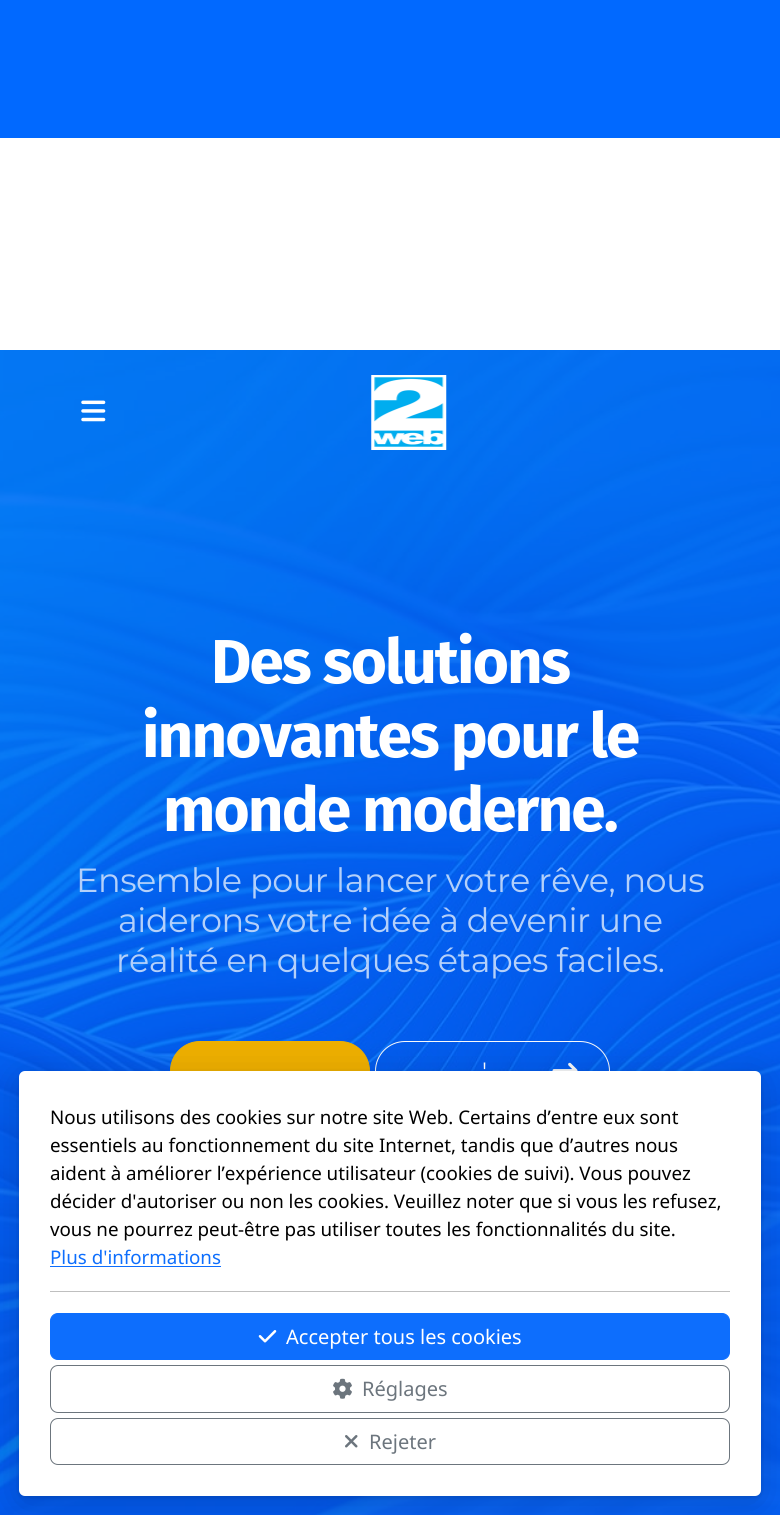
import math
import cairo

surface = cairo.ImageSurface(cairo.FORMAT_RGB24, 780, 1515)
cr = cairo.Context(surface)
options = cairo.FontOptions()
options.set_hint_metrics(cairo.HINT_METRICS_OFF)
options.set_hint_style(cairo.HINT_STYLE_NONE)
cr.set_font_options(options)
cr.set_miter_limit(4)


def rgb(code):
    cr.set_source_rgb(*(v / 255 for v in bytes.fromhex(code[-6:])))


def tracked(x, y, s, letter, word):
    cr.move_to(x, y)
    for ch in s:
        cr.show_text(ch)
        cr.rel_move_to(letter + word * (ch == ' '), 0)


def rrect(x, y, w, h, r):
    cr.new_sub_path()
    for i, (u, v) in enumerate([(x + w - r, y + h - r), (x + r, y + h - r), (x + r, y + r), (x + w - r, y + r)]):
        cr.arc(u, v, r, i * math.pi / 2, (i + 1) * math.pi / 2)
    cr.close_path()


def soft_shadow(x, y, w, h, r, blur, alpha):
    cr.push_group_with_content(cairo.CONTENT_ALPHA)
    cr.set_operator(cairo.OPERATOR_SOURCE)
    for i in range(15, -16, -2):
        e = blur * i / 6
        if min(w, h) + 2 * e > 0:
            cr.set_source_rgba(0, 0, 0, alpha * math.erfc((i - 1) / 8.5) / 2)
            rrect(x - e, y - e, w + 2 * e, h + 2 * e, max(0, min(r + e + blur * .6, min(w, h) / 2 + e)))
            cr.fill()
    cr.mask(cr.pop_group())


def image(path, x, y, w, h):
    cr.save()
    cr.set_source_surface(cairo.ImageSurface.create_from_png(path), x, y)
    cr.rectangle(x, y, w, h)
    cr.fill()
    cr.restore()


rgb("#ffffff")
cr.paint()
rgb("#0169ff")
cr.rectangle(0, 0, 780, 138)
cr.fill()
image("img/3.png", 0, 350, 780, 1165)
image("img/1.png", 81, 400, 25, 22)
image("img/2.png", 371, 375, 76, 75)
rgb("#eeaf00")
rrect(170.5, 1041.5, 199, 59, 29.5)
cr.fill_preserve()
cr.set_line_width(1)
cr.stroke()
rrect(375.5, 1041.5, 234, 59, 29.5)
rgb("#f8f9fa")
cr.stroke()
image("img/4.png", 552, 1062, 26, 9)
rgb("#000000")
soft_shadow(19, 1078, 742, 425, 6, 19, 0.16)
soft_shadow(19, 1073, 742, 425, 6, 2, 0.1)
rgb("#ffffff")
rrect(19, 1071, 742, 425, 6)
cr.fill()
rgb("#0d6efd")
cr.rectangle(50, 1266, 171, 1)
cr.fill()
rgb("#bfbfbf")
cr.rectangle(50, 1291, 680, 1)
cr.fill()
rgb("#0d6efd")
rrect(50.5, 1313.5, 679, 46, 7.5)
cr.fill_preserve()
cr.stroke()
image("img/5.png", 258, 1330, 19, 13)
rrect(50.5, 1365.5, 679, 47, 7.5)
rgb("#6c757d")
cr.stroke()
image("img/6.png", 333, 1378, 19, 21)
rrect(50.5, 1418.5, 679, 46, 7.5)
cr.stroke()
image("img/7.png", 345, 1435, 13, 13)
cr.select_font_face("Fira Sans", cairo.FONT_SLANT_NORMAL, cairo.FONT_WEIGHT_BOLD)
cr.set_font_size(62)
rgb("#ffffff")
for x, y, s in [
    (211, 683, "Des solutions"),
    (142, 757, "innovantes pour le"),
    (163, 831, "monde moderne."),
]:
    tracked(x, y, s, -1.9, 0)
cr.select_font_face("Montserrat Thin")
cr.set_font_size(33.5)
rgb("#b4d0fa")
for x, y, s in [
    (76, 892, "Ensemble pour lancer votre rêve, nous"),
    (118, 932, "aiderons votre idée à devenir une"),
    (116, 972, "réalité en quelques étapes faciles."),
]:
    tracked(x, y, s, -0.45, 0)
cr.set_font_size(25)
rgb("#f8f9fa")
tracked(482, 1080, "'", -0.45, 0)
cr.select_font_face("Noto Sans")
cr.set_font_size(18.75)
rgb("#000000")
for x, y, s in [
    (50, 1124, "Nous utilisons des cookies sur notre site Web. Certains d’entre eux sont"),
    (50, 1152, "essentiels au fonctionnement du site Internet, tandis que d’autres nous"),
    (50, 1180, "aident à améliorer l’expérience utilisateur (cookies de suivi). Vous pouvez"),
    (50, 1208, "décider d'autoriser ou non les cookies. Veuillez noter que si vous les refusez,"),
    (50, 1236, "vous ne pourrez peut-être pas utiliser toutes les fonctionnalités du site."),
]:
    cr.move_to(x, y)
    cr.show_text(s)
rgb("#0d6efd")
cr.move_to(50, 1264)
cr.show_text("Plus d'informations")
cr.set_font_size(20)
rgb("#ffffff")
cr.move_to(286, 1344)
cr.show_text("Accepter tous les cookies")
rgb("#6c757d")
cr.move_to(362, 1396)
cr.show_text("Réglages")
cr.move_to(369, 1449)
cr.show_text("Rejeter")
surface.write_to_png("page.png")
